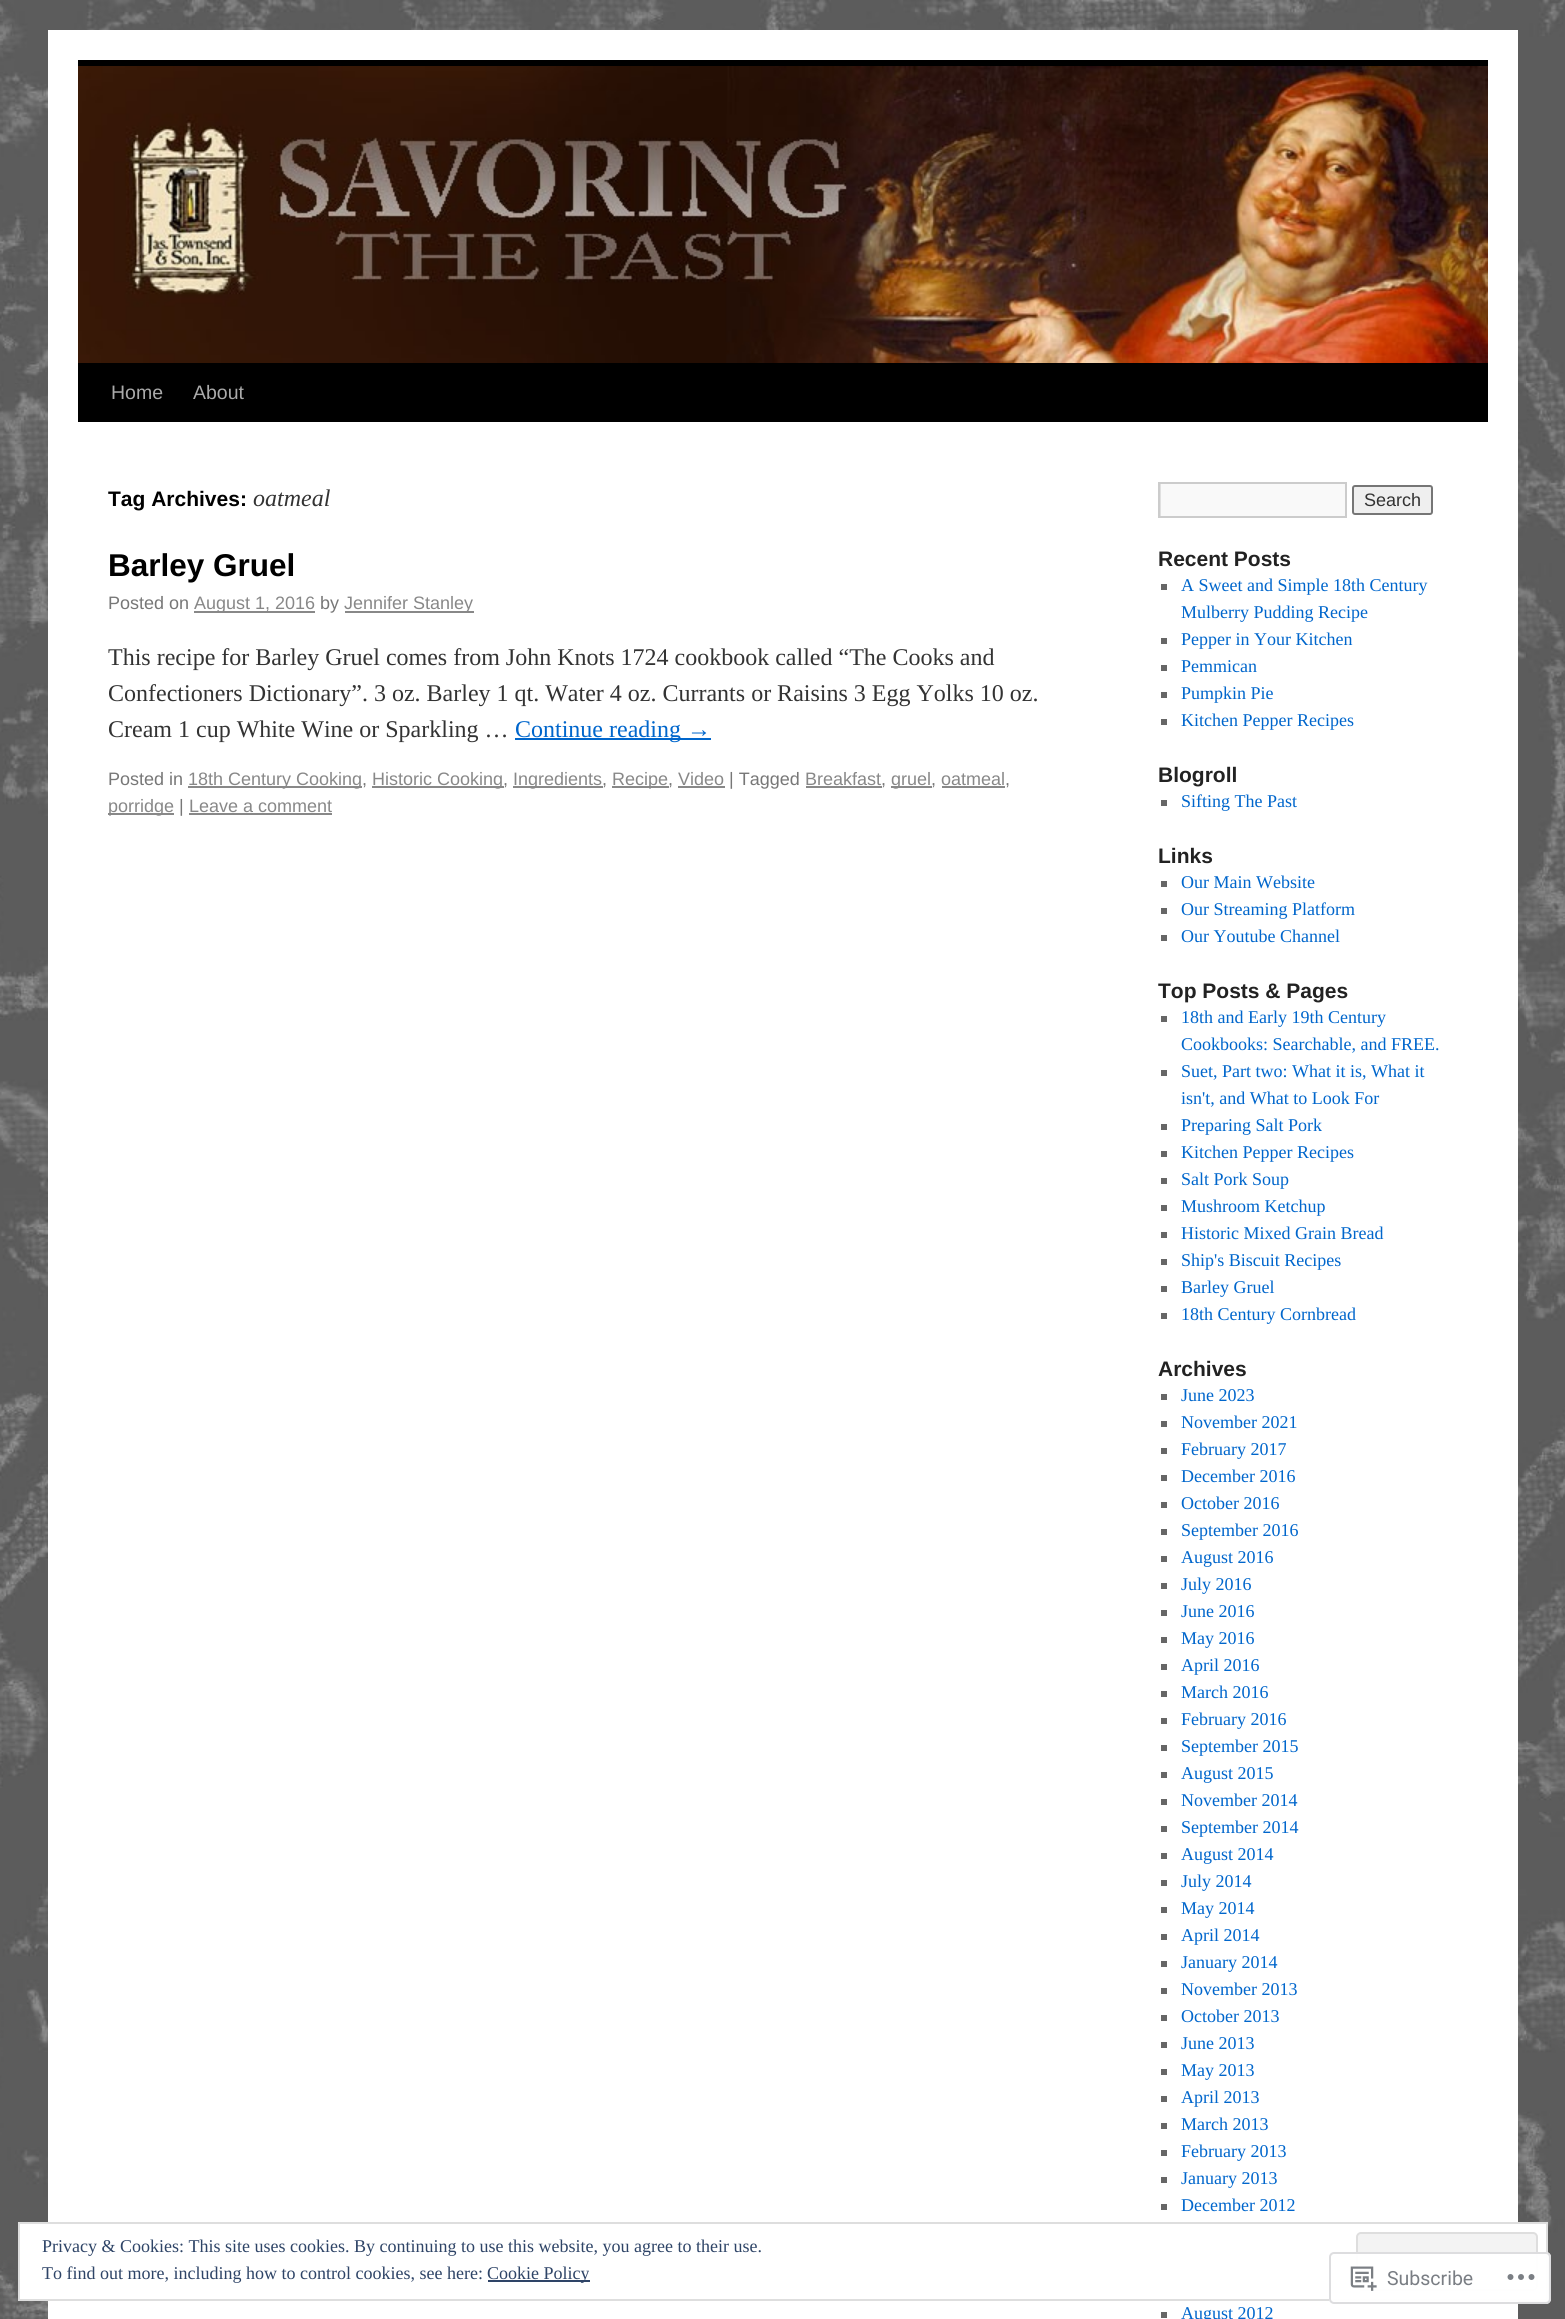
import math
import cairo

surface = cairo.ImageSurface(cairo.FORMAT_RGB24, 1565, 2319)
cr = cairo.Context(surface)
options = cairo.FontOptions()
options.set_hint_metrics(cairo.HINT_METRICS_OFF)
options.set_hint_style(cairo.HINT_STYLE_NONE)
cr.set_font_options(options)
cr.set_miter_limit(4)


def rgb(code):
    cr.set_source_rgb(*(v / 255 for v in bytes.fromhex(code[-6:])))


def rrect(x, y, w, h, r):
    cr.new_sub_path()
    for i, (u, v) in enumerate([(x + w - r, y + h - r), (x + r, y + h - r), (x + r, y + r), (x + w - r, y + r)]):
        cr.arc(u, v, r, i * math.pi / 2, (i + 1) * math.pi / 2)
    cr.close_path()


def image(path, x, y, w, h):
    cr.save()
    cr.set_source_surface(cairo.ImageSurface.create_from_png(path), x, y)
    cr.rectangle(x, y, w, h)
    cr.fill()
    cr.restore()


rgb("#ffffff")
cr.paint()
image("img/1.png", 0, 0, 1565, 2319)
for x, y, w, h, color in [
    (48, 30, 1470, 2289, "#ffffff"),
    (78, 60, 1410, 6, "#000000"),
    (78, 363, 1410, 59, "#000000"),
]:
    rgb(color)
    cr.rectangle(x, y, w, h)
    cr.fill()
image("img/2.png", 78, 66, 1410, 297)
for x, y, w, h, color in [
    (194, 611, 121, 2, "#888888"),
    (345, 611, 129, 2, "#888888"),
    (515, 738, 196, 2, "#0066cc"),
    (188, 786, 174, 2, "#888888"),
    (372, 786, 132, 2, "#888888"),
    (513, 786, 90, 2, "#888888"),
    (612, 786, 57, 2, "#888888"),
    (678, 786, 47, 2, "#888888"),
    (806, 786, 76, 2, "#888888"),
    (891, 786, 41, 2, "#888888"),
    (942, 786, 63, 2, "#888888"),
    (108, 813, 66, 2, "#888888"),
    (189, 813, 143, 2, "#888888"),
    (1161, 484, 184, 32, "#f9f9f9"),
]:
    rgb(color)
    cr.rectangle(x, y, w, h)
    cr.fill()
cr.save()
cr.rectangle(1160, 483, 186, 33)
cr.clip()
rgb("#e0e0e0")
cr.set_fill_rule(cairo.FILL_RULE_EVEN_ODD)
cr.new_path()
cr.move_to(1011, 334)
cr.line_to(1494, 334)
cr.line_to(1494, 664)
cr.line_to(1011, 664)
cr.close_path()
cr.move_to(1161, 484)
cr.line_to(1347, 484)
cr.line_to(1347, 518)
cr.line_to(1161, 518)
cr.close_path()
cr.fill()
cr.restore()
cr.rectangle(1159, 483, 187, 34)
rgb("#cccccc")
cr.stroke()
rgb("#efefef")
rrect(1353, 486, 79, 28, 2)
cr.fill_preserve()
rgb("#767676")
cr.stroke()
for x, y, w, h, color in [
    (1161, 584, 6, 6, "#666666"),
    (1161, 638, 6, 6, "#666666"),
    (1161, 665, 6, 6, "#666666"),
    (1161, 692, 6, 6, "#666666"),
    (1161, 719, 6, 6, "#666666"),
    (1161, 800, 6, 6, "#666666"),
    (1161, 881, 6, 6, "#666666"),
    (1161, 908, 6, 6, "#666666"),
    (1161, 935, 6, 6, "#666666"),
    (1161, 1016, 6, 6, "#666666"),
    (1161, 1070, 6, 6, "#666666"),
    (1161, 1124, 6, 6, "#666666"),
    (1161, 1151, 6, 6, "#666666"),
    (1161, 1178, 6, 6, "#666666"),
    (1161, 1205, 6, 6, "#666666"),
    (1161, 1232, 6, 6, "#666666"),
    (1161, 1259, 6, 6, "#666666"),
    (1161, 1286, 6, 6, "#666666"),
    (1161, 1313, 6, 6, "#666666"),
    (1161, 1394, 6, 6, "#666666"),
    (1161, 1421, 6, 6, "#666666"),
    (1161, 1448, 6, 6, "#666666"),
    (1161, 1475, 6, 6, "#666666"),
    (1161, 1502, 6, 6, "#666666"),
    (1161, 1529, 6, 6, "#666666"),
    (1161, 1556, 6, 6, "#666666"),
    (1161, 1583, 6, 6, "#666666"),
    (1161, 1610, 6, 6, "#666666"),
    (1161, 1637, 6, 6, "#666666"),
    (1161, 1664, 6, 6, "#666666"),
    (1161, 1691, 6, 6, "#666666"),
    (1161, 1718, 6, 6, "#666666"),
    (1161, 1745, 6, 6, "#666666"),
    (1161, 1772, 6, 6, "#666666"),
    (1161, 1799, 6, 6, "#666666"),
    (1161, 1826, 6, 6, "#666666"),
    (1161, 1853, 6, 6, "#666666"),
    (1161, 1880, 6, 6, "#666666"),
    (1161, 1907, 6, 6, "#666666"),
    (1161, 1934, 6, 6, "#666666"),
    (1161, 1961, 6, 6, "#666666"),
    (1161, 1988, 6, 6, "#666666"),
    (1161, 2015, 6, 6, "#666666"),
    (1161, 2042, 6, 6, "#666666"),
    (1161, 2069, 6, 6, "#666666"),
    (1161, 2096, 6, 6, "#666666"),
    (1161, 2123, 6, 6, "#666666"),
    (1161, 2150, 6, 6, "#666666"),
    (1161, 2177, 6, 6, "#666666"),
    (1161, 2204, 6, 6, "#666666"),
    (1161, 2312, 6, 6, "#666666"),
]:
    rgb(color)
    cr.rectangle(x, y, w, h)
    cr.fill()
rgb("#ffffff")
cr.rectangle(19, 2223, 1528, 77)
cr.fill_preserve()
rgb("#dedede")
cr.stroke()
rgb("#f3f3f3")
rrect(1357, 2233, 180, 57, 4)
cr.fill_preserve()
rgb("#dedede")
cr.stroke()
rgb("#2e4467")
cr.rectangle(488, 2280, 102, 2)
cr.fill()
cr.set_source_rgba(1, 1, 1, 0.98)
rrect(1329, 2252, 222, 52, 5)
cr.fill()
rrect(1330, 2253, 220, 50, 4)
cr.set_source_rgba(0.863, 0.863, 0.871, 0.98)
cr.stroke()
image("img/3.png", 1350, 2266, 27, 25)
image("img/4.png", 1507, 2274, 28, 6)
cr.select_font_face("Liberation Sans")
cr.set_font_size(19.5)
rgb("#aaaaaa")
cr.move_to(111, 399)
cr.show_text("Home")
cr.move_to(193, 399)
cr.show_text("About")
cr.select_font_face("Liberation Sans", cairo.FONT_SLANT_NORMAL, cairo.FONT_WEIGHT_BOLD)
cr.set_font_size(21)
rgb("#000000")
cr.move_to(108, 506)
cr.show_text("Tag Archives:")
cr.select_font_face("Liberation Serif", cairo.FONT_SLANT_ITALIC)
cr.set_font_size(24)
rgb("#333333")
cr.move_to(253, 506)
cr.show_text("oatmeal")
cr.select_font_face("Liberation Sans", cairo.FONT_SLANT_NORMAL, cairo.FONT_WEIGHT_BOLD)
cr.set_font_size(31.5)
rgb("#000000")
cr.move_to(108, 576)
cr.show_text("Barley Gruel")
cr.select_font_face("Liberation Sans")
cr.set_font_size(18)
rgb("#777777")
cr.move_to(108, 609)
cr.show_text("Posted on")
rgb("#888888")
cr.move_to(194, 609)
cr.show_text("August 1, 2016")
rgb("#777777")
cr.move_to(320, 609)
cr.show_text("by")
rgb("#888888")
cr.move_to(344, 609)
cr.show_text("Jennifer Stanley")
cr.select_font_face("Liberation Serif")
cr.set_font_size(24)
rgb("#333333")
for x, y, s in [
    (108, 665, "This recipe for Barley Gruel comes from John Knots 1724 cookbook called “The Cooks and"),
    (108, 701, "Confectioners Dictionary”. 3 oz. Barley 1 qt. Water 4 oz. Currants or Raisins 3 Egg Yolks 10 oz."),
    (108, 737, "Cream 1 cup White Wine or Sparkling …"),
]:
    cr.move_to(x, y)
    cr.show_text(s)
rgb("#0066cc")
cr.move_to(515, 737)
cr.show_text("Continue reading →")
cr.select_font_face("Liberation Sans")
cr.set_font_size(18)
rgb("#777777")
cr.move_to(108, 785)
cr.show_text("Posted in")
rgb("#888888")
cr.move_to(188, 785)
cr.show_text("18th Century Cooking")
rgb("#777777")
cr.move_to(362, 785)
cr.show_text(",")
rgb("#888888")
cr.move_to(372, 785)
cr.show_text("Historic Cooking")
rgb("#777777")
cr.move_to(503, 785)
cr.show_text(",")
rgb("#888888")
cr.move_to(513, 785)
cr.show_text("Ingredients")
rgb("#777777")
cr.move_to(602, 785)
cr.show_text(",")
rgb("#888888")
cr.move_to(612, 785)
cr.show_text("Recipe")
rgb("#777777")
cr.move_to(668, 785)
cr.show_text(",")
rgb("#888888")
cr.move_to(678, 785)
cr.show_text("Video")
rgb("#777777")
cr.move_to(729, 785)
cr.show_text("| Tagged")
rgb("#888888")
cr.move_to(805, 785)
cr.show_text("Breakfast")
rgb("#777777")
cr.move_to(881, 785)
cr.show_text(",")
rgb("#888888")
cr.move_to(891, 785)
cr.show_text("gruel")
rgb("#777777")
cr.move_to(931, 785)
cr.show_text(",")
rgb("#888888")
cr.move_to(941, 785)
cr.show_text("oatmeal")
rgb("#777777")
cr.move_to(1005, 785)
cr.show_text(",")
rgb("#888888")
cr.move_to(108, 812)
cr.show_text("porridge")
rgb("#777777")
cr.move_to(179, 812)
cr.show_text("|")
rgb("#888888")
cr.move_to(189, 812)
cr.show_text("Leave a comment")
rgb("#333333")
cr.move_to(1364, 506)
cr.show_text("Search")
cr.select_font_face("Liberation Sans", cairo.FONT_SLANT_NORMAL, cairo.FONT_WEIGHT_BOLD)
cr.set_font_size(21)
rgb("#222222")
cr.move_to(1158, 566)
cr.show_text("Recent Posts")
cr.select_font_face("Liberation Serif")
cr.set_font_size(18)
rgb("#0066cc")
for x, y, s in [
    (1181, 591, "A Sweet and Simple 18th Century"),
    (1181, 618, "Mulberry Pudding Recipe"),
    (1181, 645, "Pepper in Your Kitchen"),
    (1181, 672, "Pemmican"),
    (1181, 699, "Pumpkin Pie"),
    (1181, 726, "Kitchen Pepper Recipes"),
]:
    cr.move_to(x, y)
    cr.show_text(s)
cr.select_font_face("Liberation Sans", cairo.FONT_SLANT_NORMAL, cairo.FONT_WEIGHT_BOLD)
cr.set_font_size(21)
rgb("#222222")
cr.move_to(1158, 782)
cr.show_text("Blogroll")
cr.select_font_face("Liberation Serif")
cr.set_font_size(18)
rgb("#0066cc")
cr.move_to(1181, 807)
cr.show_text("Sifting The Past")
cr.select_font_face("Liberation Sans", cairo.FONT_SLANT_NORMAL, cairo.FONT_WEIGHT_BOLD)
cr.set_font_size(21)
rgb("#222222")
cr.move_to(1158, 863)
cr.show_text("Links")
cr.select_font_face("Liberation Serif")
cr.set_font_size(18)
rgb("#0066cc")
for x, y, s in [
    (1181, 888, "Our Main Website"),
    (1181, 915, "Our Streaming Platform"),
    (1181, 942, "Our Youtube Channel"),
]:
    cr.move_to(x, y)
    cr.show_text(s)
cr.select_font_face("Liberation Sans", cairo.FONT_SLANT_NORMAL, cairo.FONT_WEIGHT_BOLD)
cr.set_font_size(21)
rgb("#222222")
cr.move_to(1158, 998)
cr.show_text("Top Posts & Pages")
cr.select_font_face("Liberation Serif")
cr.set_font_size(18)
rgb("#0066cc")
for x, y, s in [
    (1181, 1023, "18th and Early 19th Century"),
    (1181, 1050, "Cookbooks: Searchable, and FREE."),
    (1181, 1077, "Suet, Part two: What it is, What it"),
    (1181, 1104, "isn't, and What to Look For"),
    (1181, 1131, "Preparing Salt Pork"),
    (1181, 1158, "Kitchen Pepper Recipes"),
    (1181, 1185, "Salt Pork Soup"),
    (1181, 1212, "Mushroom Ketchup"),
    (1181, 1239, "Historic Mixed Grain Bread"),
    (1181, 1266, "Ship's Biscuit Recipes"),
    (1181, 1293, "Barley Gruel"),
    (1181, 1320, "18th Century Cornbread"),
]:
    cr.move_to(x, y)
    cr.show_text(s)
cr.select_font_face("Liberation Sans", cairo.FONT_SLANT_NORMAL, cairo.FONT_WEIGHT_BOLD)
cr.set_font_size(21)
rgb("#222222")
cr.move_to(1158, 1376)
cr.show_text("Archives")
cr.select_font_face("Liberation Serif")
cr.set_font_size(18)
rgb("#0066cc")
for x, y, s in [
    (1181, 1401, "June 2023"),
    (1181, 1428, "November 2021"),
    (1181, 1455, "February 2017"),
    (1181, 1482, "December 2016"),
    (1181, 1509, "October 2016"),
    (1181, 1536, "September 2016"),
    (1181, 1563, "August 2016"),
    (1181, 1590, "July 2016"),
    (1181, 1617, "June 2016"),
    (1181, 1644, "May 2016"),
    (1181, 1671, "April 2016"),
    (1181, 1698, "March 2016"),
    (1181, 1725, "February 2016"),
    (1181, 1752, "September 2015"),
    (1181, 1779, "August 2015"),
    (1181, 1806, "November 2014"),
    (1181, 1833, "September 2014"),
    (1181, 1860, "August 2014"),
    (1181, 1887, "July 2014"),
    (1181, 1914, "May 2014"),
    (1181, 1941, "April 2014"),
    (1181, 1968, "January 2014"),
    (1181, 1995, "November 2013"),
    (1181, 2022, "October 2013"),
    (1181, 2049, "June 2013"),
    (1181, 2076, "May 2013"),
    (1181, 2103, "April 2013"),
    (1181, 2130, "March 2013"),
    (1181, 2157, "February 2013"),
    (1181, 2184, "January 2013"),
    (1181, 2211, "December 2012"),
    (1181, 2319, "August 2012"),
]:
    cr.move_to(x, y)
    cr.show_text(s)
rgb("#2e4467")
for x, y, s in [
    (42, 2252, "Privacy & Cookies: This site uses cookies. By continuing to use this website, you agree to their use."),
    (42, 2279, "To find out more, including how to control cookies, see here:"),
    (487, 2279, "Cookie Policy"),
]:
    cr.move_to(x, y)
    cr.show_text(s)
cr.select_font_face("Roboto")
cr.set_font_size(19.5)
rgb("#7a7e84")
cr.move_to(1387, 2285)
cr.show_text("Subscribe")
surface.write_to_png("page.png")
